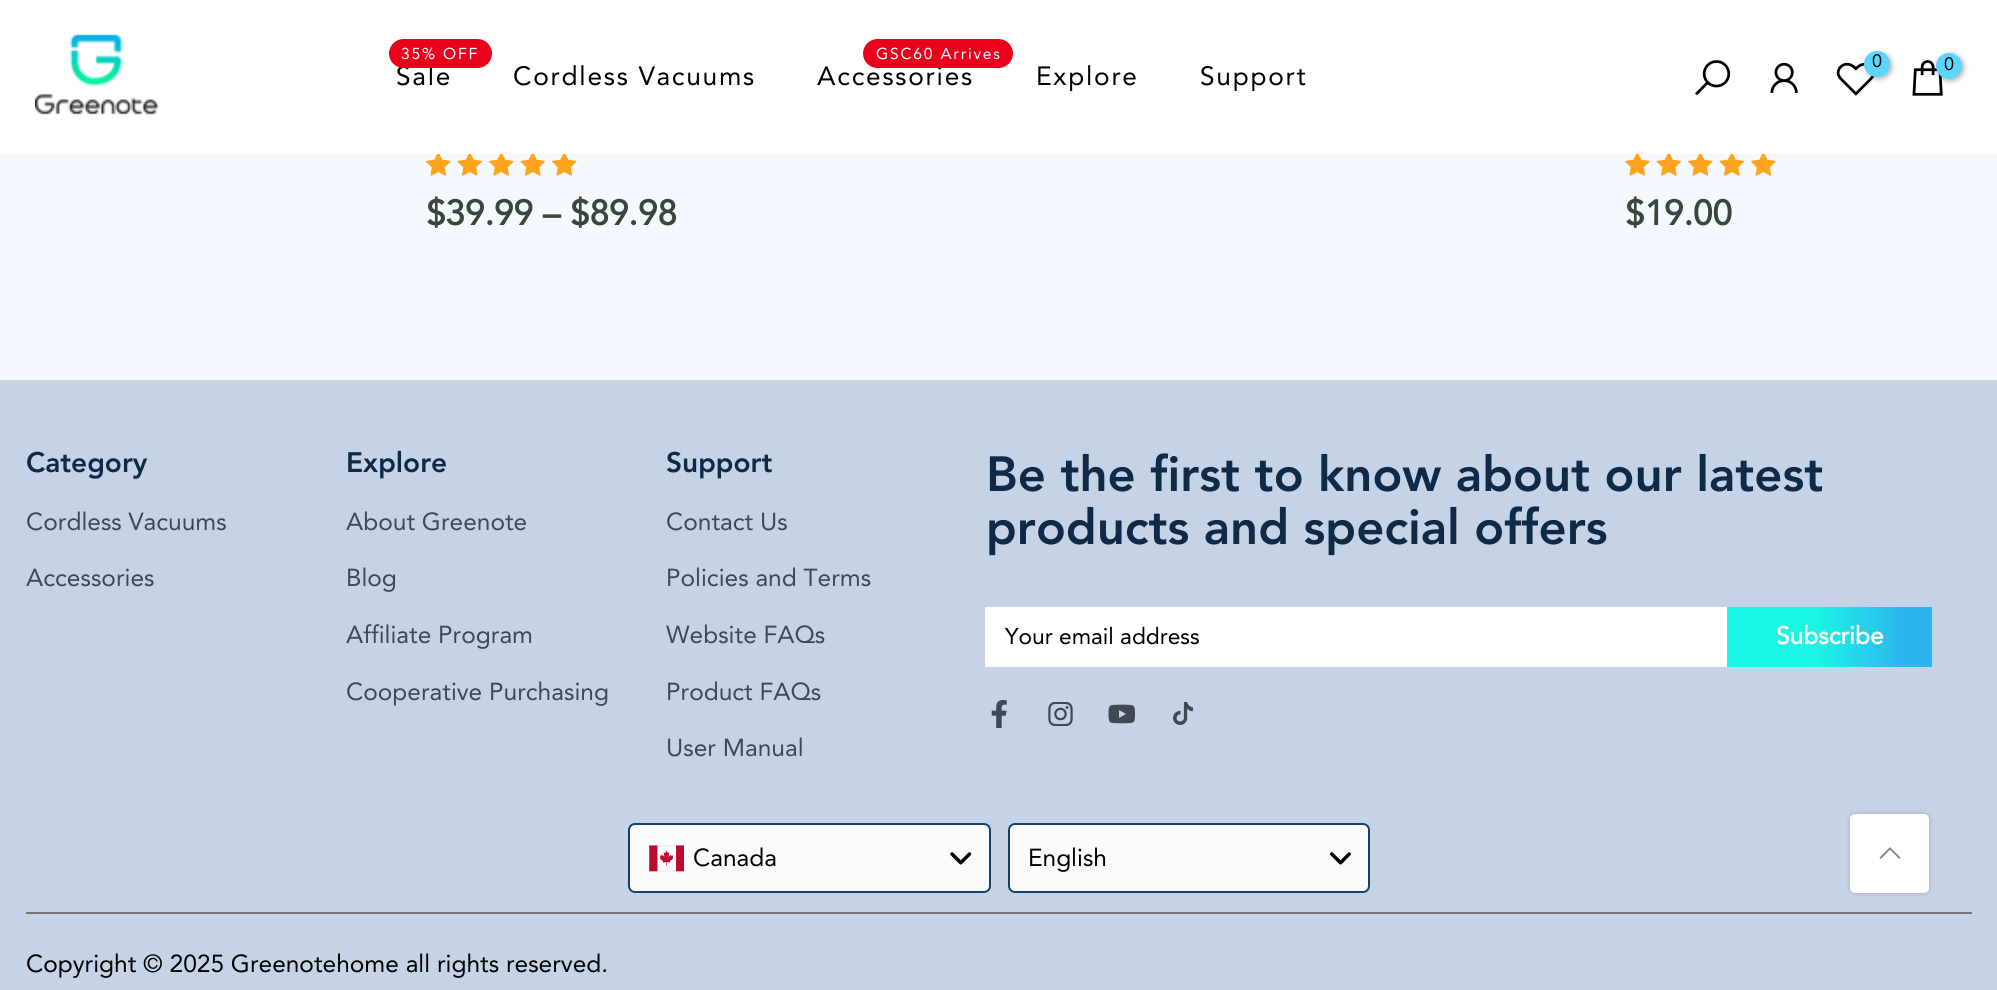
import math
import cairo

surface = cairo.ImageSurface(cairo.FORMAT_RGB24, 1997, 990)
cr = cairo.Context(surface)
options = cairo.FontOptions()
options.set_hint_metrics(cairo.HINT_METRICS_OFF)
options.set_hint_style(cairo.HINT_STYLE_NONE)
cr.set_font_options(options)
cr.set_miter_limit(4)


def rgb(code):
    cr.set_source_rgb(*(v / 255 for v in bytes.fromhex(code[-6:])))


def tracked(x, y, s, letter, word):
    cr.move_to(x, y)
    for ch in s:
        cr.show_text(ch)
        cr.rel_move_to(letter + word * (ch == ' '), 0)


def rrect(x, y, w, h, r):
    cr.new_sub_path()
    for i, (u, v) in enumerate([(x + w - r, y + h - r), (x + r, y + h - r), (x + r, y + r), (x + w - r, y + r)]):
        cr.arc(u, v, r, i * math.pi / 2, (i + 1) * math.pi / 2)
    cr.close_path()


def soft_shadow(x, y, w, h, r, blur, alpha):
    cr.push_group_with_content(cairo.CONTENT_ALPHA)
    cr.set_operator(cairo.OPERATOR_SOURCE)
    for i in range(15, -16, -2):
        e = blur * i / 6
        if min(w, h) + 2 * e > 0:
            cr.set_source_rgba(0, 0, 0, alpha * math.erfc((i - 1) / 8.5) / 2)
            rrect(x - e, y - e, w + 2 * e, h + 2 * e, max(0, min(r + e + blur * .6, min(w, h) / 2 + e)))
            cr.fill()
    cr.mask(cr.pop_group())


def image(path, x, y, w, h):
    cr.save()
    cr.set_source_surface(cairo.ImageSurface.create_from_png(path), x, y)
    cr.rectangle(x, y, w, h)
    cr.fill()
    cr.restore()


rgb("#f4f9ff")
cr.paint()
rgb("#ffffff")
cr.rectangle(0, 0, 1997, 154)
cr.fill()
image("img/1.png", 35, 34, 123, 81)
image("img/2.png", 1695, 60, 36, 36)
image("img/3.png", 1770, 62, 28, 31)
image("img/4.png", 1836, 62, 39, 34)
rgb("#000000")
soft_shadow(1866, 53, 26, 26, 13, 2.5, 0.3)
rgb("#5bd6ff")
cr.arc(1877, 64, 13, 0, 2 * math.pi)
cr.fill()
image("img/5.png", 1912, 60, 31, 36)
rgb("#000000")
soft_shadow(1937, 54, 27, 27, 13.5, 2.5, 0.3)
rgb("#5bd6ff")
cr.arc(1949, 66, 13, 0, 2 * math.pi)
cr.fill()
image("img/6.png", 426, 154, 25, 22)
image("img/7.png", 457, 154, 25, 22)
image("img/6.png", 489, 154, 25, 22)
image("img/7.png", 520, 154, 25, 22)
image("img/6.png", 552, 154, 25, 22)
image("img/8.png", 1625, 154, 25, 22)
image("img/9.png", 1656, 154, 25, 22)
image("img/8.png", 1688, 154, 25, 22)
image("img/9.png", 1719, 154, 25, 22)
image("img/8.png", 1751, 154, 25, 22)
rgb("#c6d2e6")
cr.rectangle(0, 380, 1997, 610)
cr.fill()
rgb("#ffffff")
cr.rectangle(985, 607, 742, 60)
cr.fill()
gradient = cairo.LinearGradient(1727, 637, 1932, 637)
gradient.add_color_stop_rgba(0.44, 0.106, 0.961, 0.894, 1)
gradient.add_color_stop_rgba(0.85, 0.176, 0.71, 0.937, 1)
cr.set_source(gradient)
cr.rectangle(1727, 607, 205, 60)
cr.fill()
image("img/10.png", 991, 700, 16, 28)
image("img/11.png", 1048, 702, 25, 24)
image("img/12.png", 1108, 704, 27, 20)
image("img/13.png", 1173, 702, 20, 23)
rgb("#fbfbfb")
rrect(628, 823, 363, 70, 7)
cr.fill()
image("img/14.png", 950, 852, 22, 13)
rrect(629, 824, 361, 68, 6)
rgb("#12426a")
cr.stroke()
image("img/15.png", 649, 845, 35, 27)
cr.rectangle(650, 846, 33, 25)
cr.set_source_rgba(0, 0, 0, 0.05)
cr.stroke()
rgb("#fbfbfb")
rrect(1008, 823, 362, 70, 7)
cr.fill()
image("img/16.png", 1330, 852, 21, 13)
rrect(1009, 824, 360, 68, 6)
rgb("#12426a")
cr.stroke()
rgb("#787373")
cr.rectangle(26, 912, 1946, 2)
cr.fill()
rgb("#000000")
soft_shadow(1850, 814, 79, 79, 5, 2.5, 0.2)
rgb("#ffffff")
rrect(1850, 814, 79, 79, 5)
cr.fill()
image("img/17.png", 1879, 847, 22, 12)
cr.select_font_face("Avenir")
cr.set_font_size(26.25)
rgb("#000000")
tracked(396, 85, "Sale", 1.75, 0)
rgb("#eb001b")
rrect(389, 39, 103, 29, 14.5)
cr.fill()
cr.set_font_size(15.75)
rgb("#ffffff")
tracked(401, 59, "35% OFF", 1.75, 0)
cr.set_font_size(26.25)
rgb("#000000")
tracked(513, 85, "Cordless Vacuums", 1.75, 0)
tracked(817, 85, "Accessories", 1.75, 0)
rgb("#eb001b")
rrect(863, 39, 150, 29, 14.5)
cr.fill()
cr.set_font_size(15.75)
rgb("#ffffff")
tracked(876, 59, "GSC60 Arrives", 1.75, 0)
cr.set_font_size(26.25)
rgb("#000000")
tracked(1036, 85, "Explore", 1.75, 0)
tracked(1200, 85, "Support", 1.75, 0)
cr.set_font_size(18)
cr.move_to(1872, 67)
cr.show_text("0")
cr.move_to(1944, 70)
cr.show_text("0")
cr.select_font_face("Avenir", cairo.FONT_SLANT_NORMAL, cairo.FONT_WEIGHT_BOLD)
cr.set_font_size(35)
rgb("#3a463c")
cr.move_to(426, 225)
cr.show_text("$39.99 – $89.98")
cr.move_to(1625, 225)
cr.show_text("$19.00")
cr.select_font_face("Avenir Black")
cr.set_font_size(28)
rgb("#0f2948")
cr.move_to(26, 472)
cr.show_text("Category")
cr.select_font_face("Avenir")
cr.set_font_size(24.5)
rgb("#404855")
cr.move_to(26, 530)
cr.show_text("Cordless Vacuums")
cr.move_to(26, 586)
cr.show_text("Accessories")
cr.select_font_face("Avenir Black")
cr.set_font_size(28)
rgb("#0f2948")
cr.move_to(346, 472)
cr.show_text("Explore")
cr.select_font_face("Avenir")
cr.set_font_size(24.5)
rgb("#404855")
for x, y, s in [
    (346, 530, "About Greenote"),
    (346, 586, "Blog"),
    (346, 643, "Affiliate Program"),
    (346, 700, "Cooperative Purchasing"),
]:
    cr.move_to(x, y)
    cr.show_text(s)
cr.select_font_face("Avenir Black")
cr.set_font_size(28)
rgb("#0f2948")
cr.move_to(666, 472)
cr.show_text("Support")
cr.select_font_face("Avenir")
cr.set_font_size(24.5)
rgb("#404855")
for x, y, s in [
    (666, 530, "Contact Us"),
    (666, 586, "Policies and Terms"),
    (666, 643, "Website FAQs"),
    (666, 700, "Product FAQs"),
    (666, 756, "User Manual"),
]:
    cr.move_to(x, y)
    cr.show_text(s)
cr.select_font_face("Avenir Black")
cr.set_font_size(49)
rgb("#0f2948")
cr.move_to(986, 491)
cr.show_text("Be the first to know about our latest")
cr.move_to(986, 544)
cr.show_text("products and special offers")
cr.select_font_face("Avenir")
cr.set_font_size(22.75)
rgb("#000000")
cr.move_to(1005, 644)
cr.show_text("Your email address")
cr.select_font_face("Avenir", cairo.FONT_SLANT_NORMAL, cairo.FONT_WEIGHT_BOLD)
cr.set_font_size(24.5)
rgb("#ffffff")
cr.move_to(1776, 644)
cr.show_text("Subscribe")
cr.select_font_face("Avenir")
rgb("#000000")
for x, y, s in [
    (693, 866, "Canada"),
    (1028, 866, "English"),
    (26, 972, "Copyright © 2025 Greenotehome all rights reserved."),
]:
    cr.move_to(x, y)
    cr.show_text(s)
surface.write_to_png("page.png")
